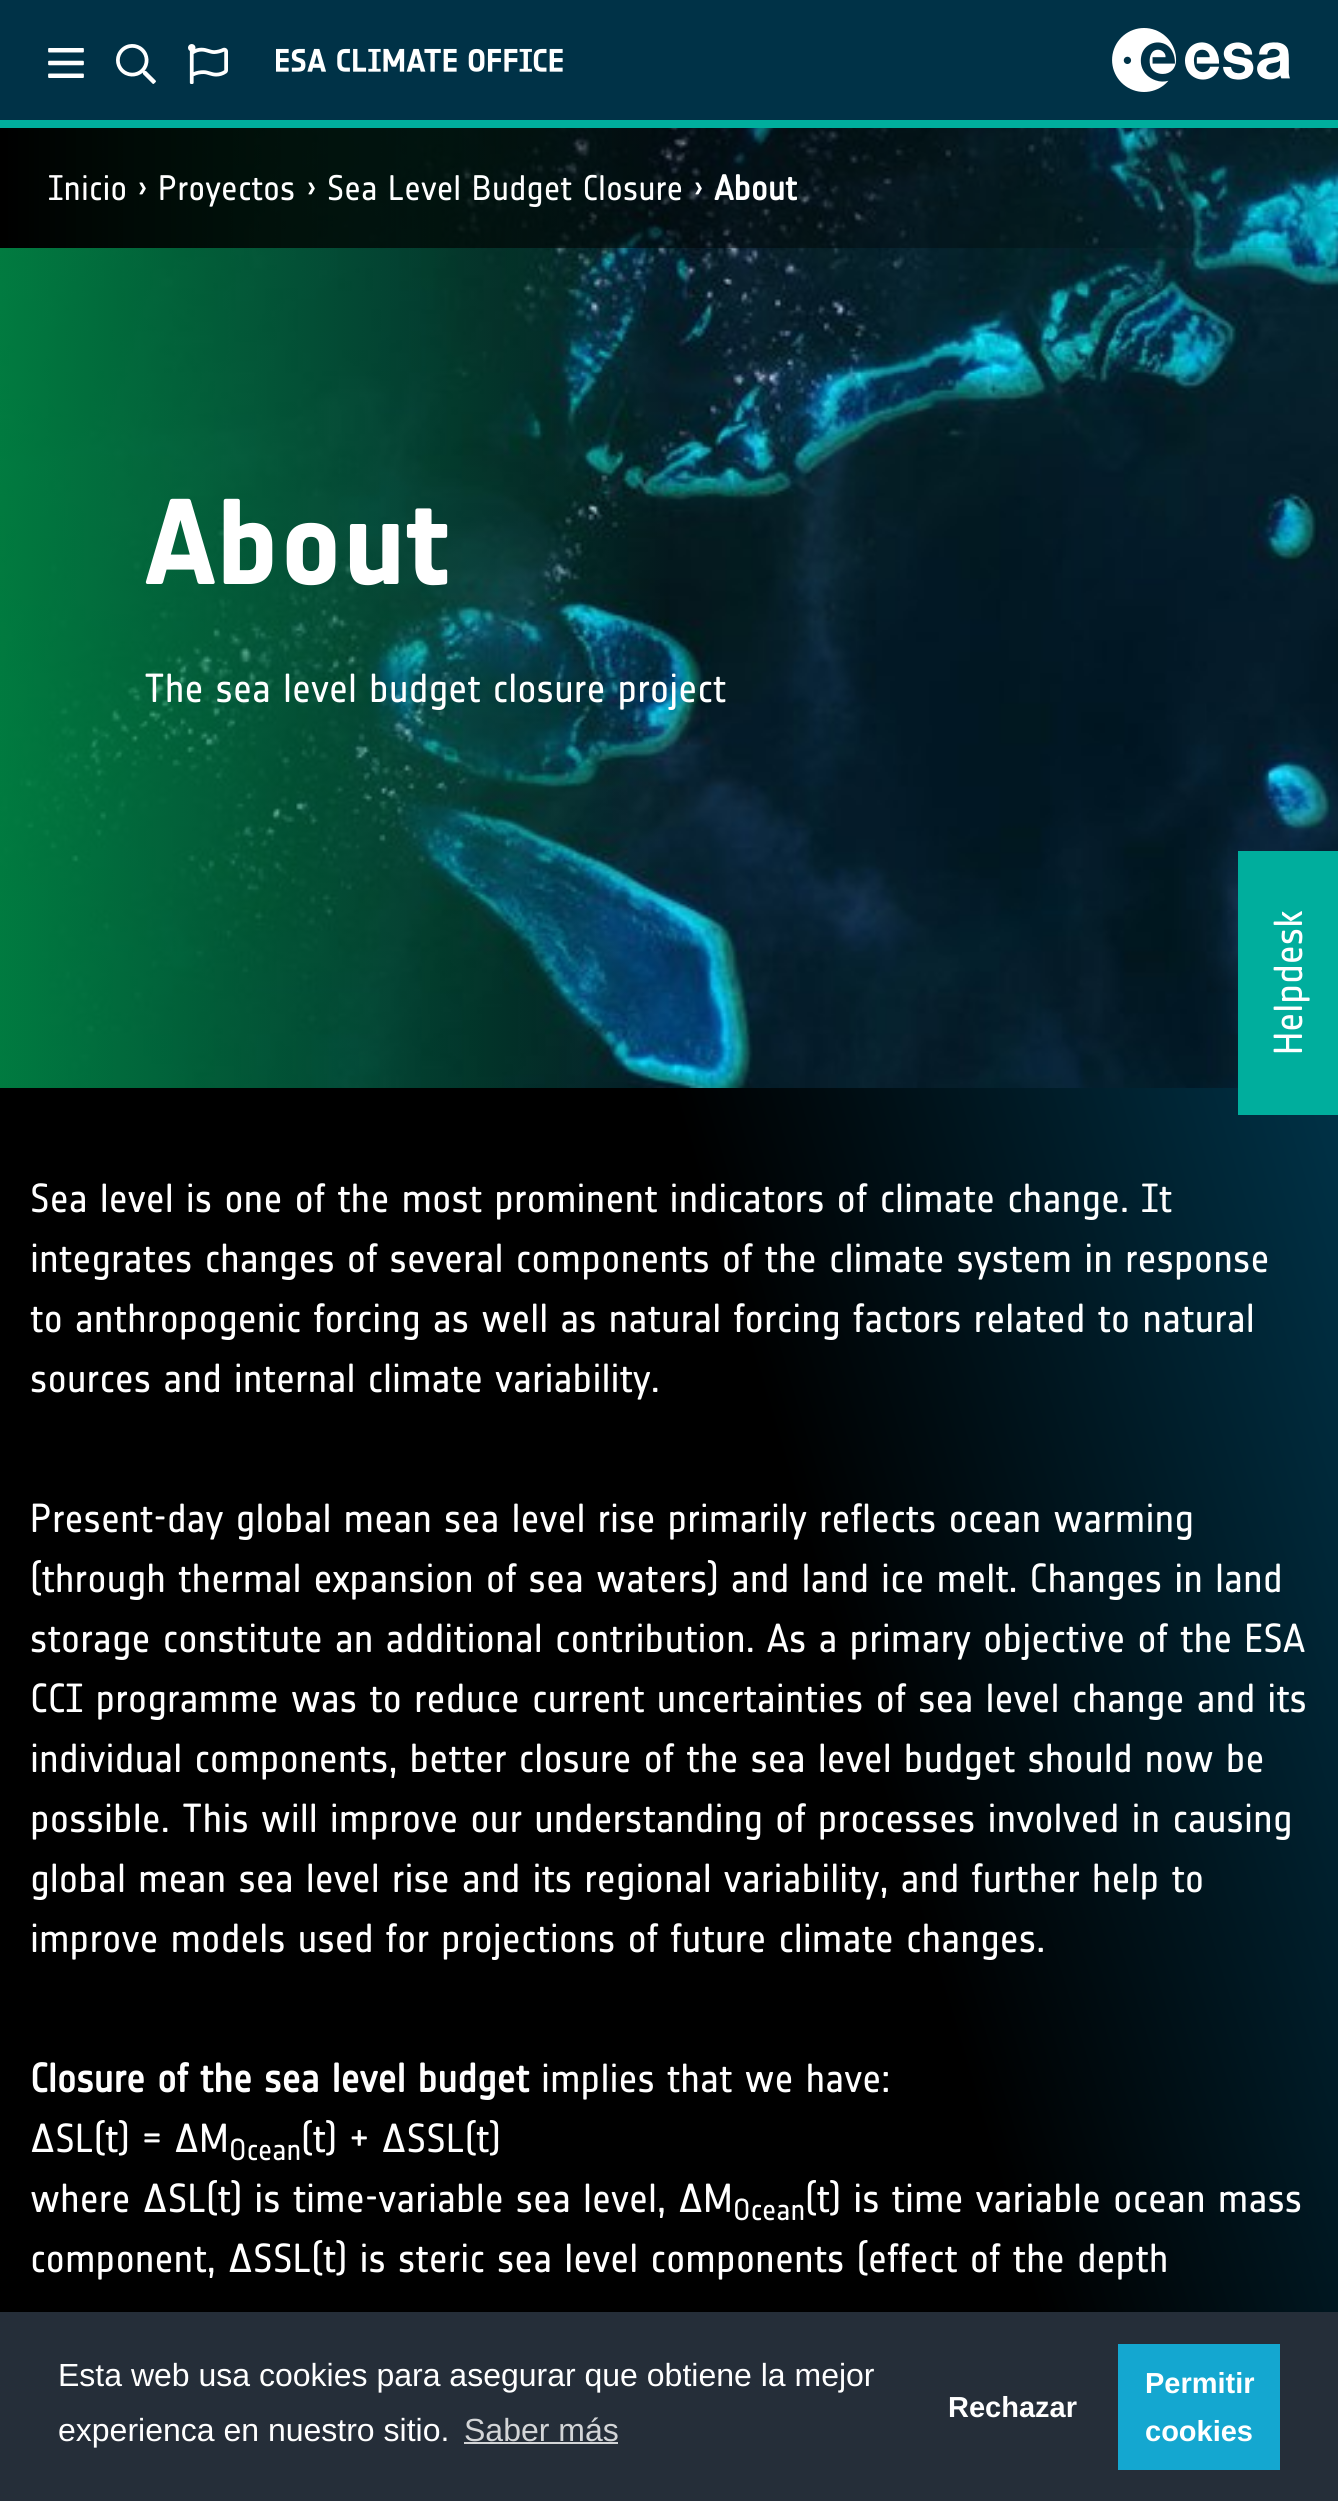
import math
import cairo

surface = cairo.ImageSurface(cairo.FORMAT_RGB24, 1338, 2501)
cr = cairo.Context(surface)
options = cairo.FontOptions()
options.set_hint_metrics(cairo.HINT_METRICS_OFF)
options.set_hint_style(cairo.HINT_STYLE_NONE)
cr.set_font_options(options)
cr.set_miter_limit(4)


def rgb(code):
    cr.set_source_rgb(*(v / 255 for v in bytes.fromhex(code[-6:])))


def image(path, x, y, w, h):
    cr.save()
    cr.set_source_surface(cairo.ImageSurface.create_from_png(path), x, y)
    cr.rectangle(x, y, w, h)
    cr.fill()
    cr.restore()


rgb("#ffffff")
cr.paint()
rgb("#003247")
cr.rectangle(0, 0, 1338, 120)
cr.fill()
rgb("#00ae9d")
cr.rectangle(0, 120, 1338, 8)
cr.fill()
image("img/1.png", 48, 48, 36, 30)
image("img/2.png", 116, 44, 40, 40)
image("img/3.png", 188, 44, 40, 40)
image("img/4.png", 276, 48, 287, 24)
image("img/5.png", 1112, 28, 178, 64)
image("img/6.png", 0, 128, 1338, 960)
gradient = cairo.LinearGradient(1338, 184, 0, 184)
gradient.add_color_stop_rgba(0, 0, 0, 0, 0)
gradient.add_color_stop_rgba(1, 0, 0, 0, 1)
cr.set_source(gradient)
cr.rectangle(0, 128, 1309, 120)
cr.fill()
gradient = cairo.LinearGradient(-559, 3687, 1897, 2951)
gradient.add_color_stop_rgba(0, 0, 0, 0, 1)
gradient.add_color_stop_rgba(0.75, 0, 0, 0, 1)
gradient.add_color_stop_rgba(1, 0, 0.196, 0.278, 1)
cr.set_source(gradient)
cr.rectangle(0, 1088, 1338, 1224)
cr.fill()
for x, y, w, h, color in [
    (1238, 851, 100, 264, "#00ae9d"),
    (0, 2312, 1338, 189, "#252e39"),
    (464, 2442, 154, 2, "#d3d5d7"),
    (1118, 2344, 162, 126, "#14a7d0"),
]:
    rgb(color)
    cr.rectangle(x, y, w, h)
    cr.fill()
cr.select_font_face("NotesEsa")
cr.set_font_size(35)
rgb("#ffffff")
for x, y, s in [
    (48, 200, "Inicio"),
    (137, 200, "›"),
    (158, 200, "Proyectos"),
    (306, 200, "›"),
    (327, 200, "Sea Level Budget Closure"),
    (693, 200, "›"),
]:
    cr.move_to(x, y)
    cr.show_text(s)
cr.select_font_face("NotesEsa", cairo.FONT_SLANT_NORMAL, cairo.FONT_WEIGHT_BOLD)
cr.move_to(714, 200)
cr.show_text("About")
cr.select_font_face("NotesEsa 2", cairo.FONT_SLANT_NORMAL, cairo.FONT_WEIGHT_BOLD)
cr.set_font_size(120)
cr.move_to(144, 584)
cr.show_text("About")
cr.select_font_face("NotesEsa")
cr.set_font_size(40)
cr.move_to(144, 702)
cr.show_text("The sea level budget closure project")
cr.save()
cr.translate(1302, 1055)
cr.rotate(-90 * math.pi / 180)
cr.move_to(0, 0)
cr.show_text("Helpdesk")
cr.restore()
for x, y, s in [
    (30, 1212, "Sea level is one of the most prominent indicators of climate change. It"),
    (30, 1272, "integrates changes of several components of the climate system in response"),
    (30, 1332, "to anthropogenic forcing as well as natural forcing factors related to natural"),
    (30, 1392, "sources and internal climate variability."),
    (30, 1532, "Present-day global mean sea level rise primarily reflects ocean warming"),
    (30, 1592, "(through thermal expansion of sea waters) and land ice melt. Changes in land"),
    (30, 1652, "storage constitute an additional contribution. As a primary objective of the ESA"),
    (30, 1712, "CCI programme was to reduce current uncertainties of sea level change and its"),
    (30, 1772, "individual components, better closure of the sea level budget should now be"),
    (30, 1832, "possible. This will improve our understanding of processes involved in causing"),
    (30, 1892, "global mean sea level rise and its regional variability, and further help to"),
    (30, 1952, "improve models used for projections of future climate changes."),
]:
    cr.move_to(x, y)
    cr.show_text(s)
cr.select_font_face("NotesEsa", cairo.FONT_SLANT_NORMAL, cairo.FONT_WEIGHT_BOLD)
cr.move_to(30, 2092)
cr.show_text("Closure of the sea level budget")
cr.select_font_face("NotesEsa")
cr.move_to(541, 2092)
cr.show_text("implies that we have:")
cr.move_to(30, 2152)
cr.show_text("ΔSL(t) = ΔM")
cr.set_font_size(30)
cr.move_to(229, 2160)
cr.show_text("Ocean")
cr.set_font_size(40)
cr.move_to(301, 2152)
cr.show_text("(t) + ΔSSL(t)")
cr.move_to(30, 2212)
cr.show_text("where ΔSL(t) is time-variable sea level, ΔM")
cr.set_font_size(30)
cr.move_to(733, 2220)
cr.show_text("Ocean")
cr.set_font_size(40)
cr.move_to(805, 2212)
cr.show_text("(t) is time variable ocean mass")
cr.move_to(30, 2272)
cr.show_text("component, ΔSSL(t) is steric sea level components (effect of the depth")
cr.select_font_face("Liberation Sans")
cr.set_font_size(32)
cr.move_to(58, 2386)
cr.show_text("Esta web usa cookies para asegurar que obtiene la mejor")
cr.move_to(58, 2441)
cr.show_text("experienca en nuestro sitio.")
rgb("#d3d5d7")
cr.move_to(464, 2441)
cr.show_text("Saber más")
cr.select_font_face("Liberation Sans", cairo.FONT_SLANT_NORMAL, cairo.FONT_WEIGHT_BOLD)
cr.set_font_size(29)
rgb("#ffffff")
for x, y, s in [
    (948, 2417, "Rechazar"),
    (1145, 2393, "Permitir"),
    (1145, 2441, "cookies"),
]:
    cr.move_to(x, y)
    cr.show_text(s)
surface.write_to_png("page.png")
